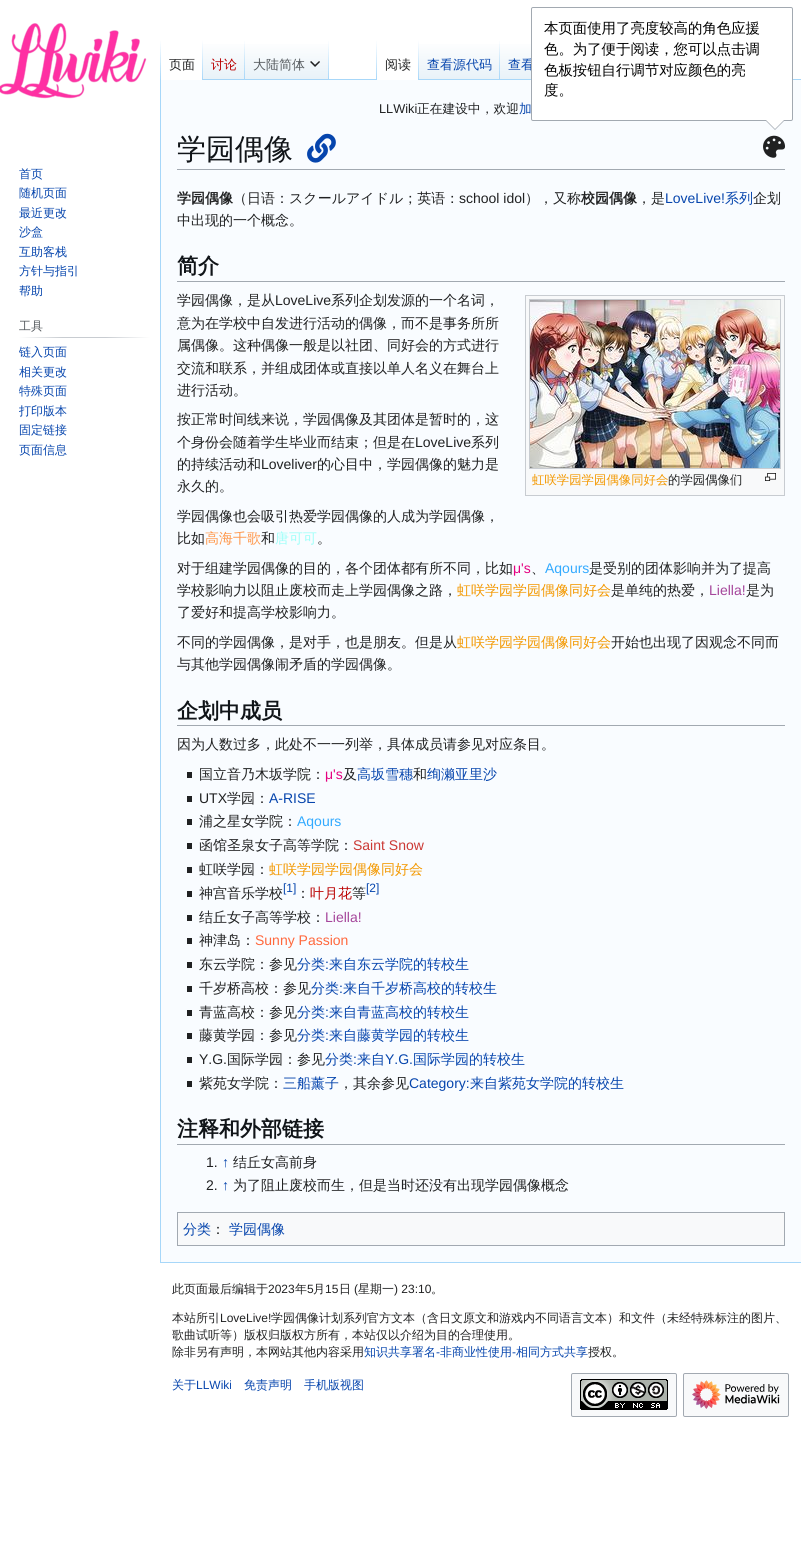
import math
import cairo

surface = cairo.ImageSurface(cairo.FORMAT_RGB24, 801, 1563)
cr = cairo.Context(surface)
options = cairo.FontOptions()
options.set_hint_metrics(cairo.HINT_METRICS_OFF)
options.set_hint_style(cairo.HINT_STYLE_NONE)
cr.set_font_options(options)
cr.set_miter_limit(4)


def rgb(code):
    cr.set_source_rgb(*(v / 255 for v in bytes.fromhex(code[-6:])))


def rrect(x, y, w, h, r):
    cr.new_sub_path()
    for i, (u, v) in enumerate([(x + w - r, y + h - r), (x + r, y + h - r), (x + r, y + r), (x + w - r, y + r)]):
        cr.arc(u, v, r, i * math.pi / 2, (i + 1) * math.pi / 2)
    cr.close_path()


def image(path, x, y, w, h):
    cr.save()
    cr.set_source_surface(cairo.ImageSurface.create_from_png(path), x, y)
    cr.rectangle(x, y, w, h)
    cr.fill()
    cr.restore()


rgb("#ffffff")
cr.paint()
rgb("#a7d7f9")
cr.rectangle(160, 1262, 641, 1)
cr.fill()
cr.rectangle(160, 79, 1, 1184)
cr.fill()
gradient = cairo.LinearGradient(161, 40, 161, 80)
gradient.add_color_stop_rgba(0, 0.655, 0.843, 0.976, 0)
gradient.add_color_stop_rgba(1, 0.655, 0.843, 0.976, 1)
cr.set_source(gradient)
cr.rectangle(160, 40, 1, 40)
cr.fill()
gradient = cairo.LinearGradient(203, 40, 203, 80)
gradient.add_color_stop_rgba(0, 1, 1, 1, 1)
gradient.add_color_stop_rgba(1, 0.655, 0.843, 0.976, 1)
cr.set_source(gradient)
cr.rectangle(202, 40, 1, 40)
cr.fill()
gradient = cairo.LinearGradient(224, 80, 224, 40)
gradient.add_color_stop_rgba(0, 0.467, 0.757, 0.965, 1)
gradient.add_color_stop_rgba(0.03, 0.91, 0.949, 0.973, 1)
gradient.add_color_stop_rgba(1, 1, 1, 1, 1)
cr.set_source(gradient)
cr.rectangle(203, 44, 42, 36)
cr.fill()
gradient = cairo.LinearGradient(245, 40, 245, 80)
gradient.add_color_stop_rgba(0, 0.655, 0.843, 0.976, 0)
gradient.add_color_stop_rgba(1, 0.655, 0.843, 0.976, 1)
cr.set_source(gradient)
cr.rectangle(244, 40, 1, 40)
cr.fill()
gradient = cairo.LinearGradient(287, 80, 287, 40)
gradient.add_color_stop_rgba(0, 0.467, 0.757, 0.965, 1)
gradient.add_color_stop_rgba(0.03, 0.91, 0.949, 0.973, 1)
gradient.add_color_stop_rgba(1, 1, 1, 1, 1)
cr.set_source(gradient)
cr.rectangle(245, 44, 83, 36)
cr.fill()
rgb("#a7d7f9")
cr.rectangle(328, 79, 473, 1)
cr.fill()
gradient = cairo.LinearGradient(329, 40, 329, 80)
gradient.add_color_stop_rgba(0, 0.655, 0.843, 0.976, 0)
gradient.add_color_stop_rgba(1, 0.655, 0.843, 0.976, 1)
cr.set_source(gradient)
cr.rectangle(328, 40, 1, 40)
cr.fill()
image("img/1.png", 310, 61, 10, 6)
gradient = cairo.LinearGradient(377, 40, 377, 80)
gradient.add_color_stop_rgba(0, 0.655, 0.843, 0.976, 0)
gradient.add_color_stop_rgba(1, 0.655, 0.843, 0.976, 1)
cr.set_source(gradient)
cr.rectangle(376, 40, 1, 40)
cr.fill()
rgb("#ffffff")
cr.rectangle(377, 79, 41, 1)
cr.fill()
gradient = cairo.LinearGradient(419, 40, 419, 80)
gradient.add_color_stop_rgba(0, 1, 1, 1, 1)
gradient.add_color_stop_rgba(1, 0.655, 0.843, 0.976, 1)
cr.set_source(gradient)
cr.rectangle(418, 40, 1, 40)
cr.fill()
gradient = cairo.LinearGradient(460, 80, 460, 40)
gradient.add_color_stop_rgba(0, 0.467, 0.757, 0.965, 1)
gradient.add_color_stop_rgba(0.03, 0.91, 0.949, 0.973, 1)
gradient.add_color_stop_rgba(1, 1, 1, 1, 1)
cr.set_source(gradient)
cr.rectangle(419, 44, 81, 35)
cr.fill()
gradient = cairo.LinearGradient(500, 40, 500, 80)
gradient.add_color_stop_rgba(0, 0.655, 0.843, 0.976, 0)
gradient.add_color_stop_rgba(1, 0.655, 0.843, 0.976, 1)
cr.set_source(gradient)
cr.rectangle(499, 40, 1, 40)
cr.fill()
gradient = cairo.LinearGradient(534, 80, 534, 40)
gradient.add_color_stop_rgba(0, 0.467, 0.757, 0.965, 1)
gradient.add_color_stop_rgba(0.03, 0.91, 0.949, 0.973, 1)
gradient.add_color_stop_rgba(1, 1, 1, 1, 1)
cr.set_source(gradient)
cr.rectangle(500, 44, 31, 35)
cr.fill()
image("img/2.png", 0, 23, 147, 76)
gradient = cairo.LinearGradient(19, 338, 150, 338)
gradient.add_color_stop_rgba(0, 1, 1, 1, 1)
gradient.add_color_stop_rgba(0.33, 0.784, 0.8, 0.82, 1)
gradient.add_color_stop_rgba(0.66, 0.784, 0.8, 0.82, 1)
gradient.add_color_stop_rgba(1, 1, 1, 1, 1)
cr.set_source(gradient)
cr.rectangle(19, 337, 131, 1)
cr.fill()
rgb("#f9fcff")
cr.rectangle(161, 80, 640, 1182)
cr.fill()
rgb("#a2a9b1")
cr.rectangle(177, 169, 608, 1)
cr.fill()
image("img/3.png", 307, 133, 29, 30)
image("img/4.png", 763, 135, 22, 23)
for x, y, w, h, color in [
    (177, 281, 608, 1, "#a2a9b1"),
    (526, 296, 258, 199, "#f8f9fa"),
    (525, 295, 260, 1, "#c8ccd1"),
    (525, 495, 260, 1, "#c8ccd1"),
    (784, 295, 1, 201, "#c8ccd1"),
    (525, 295, 1, 201, "#c8ccd1"),
]:
    rgb(color)
    cr.rectangle(x, y, w, h)
    cr.fill()
cr.rectangle(529.5, 299.5, 251, 169)
cr.set_line_width(1)
cr.stroke()
image("img/5.png", 530, 300, 250, 168)
image("img/6.png", 765, 473, 11, 8)
for x, y, w, h, color in [
    (177, 725, 608, 1, "#a2a9b1"),
    (187, 772, 5, 6, "#202122"),
    (187, 796, 5, 6, "#202122"),
    (187, 819, 5, 6, "#202122"),
    (187, 843, 5, 6, "#202122"),
    (187, 867, 5, 6, "#202122"),
    (187, 891, 5, 6, "#202122"),
    (187, 915, 5, 6, "#202122"),
    (187, 938, 5, 6, "#202122"),
    (187, 962, 5, 6, "#202122"),
    (187, 986, 5, 6, "#202122"),
    (187, 1010, 5, 6, "#202122"),
    (187, 1033, 5, 6, "#202122"),
    (187, 1057, 5, 6, "#202122"),
    (187, 1081, 5, 6, "#202122"),
    (177, 1144, 608, 1, "#a2a9b1"),
]:
    rgb(color)
    cr.rectangle(x, y, w, h)
    cr.fill()
rgb("#f8f9fa")
cr.rectangle(177.5, 1212.5, 607, 33)
cr.fill_preserve()
rgb("#a2a9b1")
cr.stroke()
rgb("#f8f9fa")
rrect(571.5, 1373.5, 105, 43, 1.5)
cr.fill_preserve()
rgb("#a2a9b1")
cr.stroke()
image("img/7.png", 580, 1379, 88, 31)
rgb("#f8f9fa")
rrect(683.5, 1373.5, 105, 43, 1.5)
cr.fill_preserve()
rgb("#a2a9b1")
cr.stroke()
image("img/8.png", 692, 1380, 88, 29)
cr.select_font_face("WenQuanYi Zen Hei Medium")
cr.set_font_size(13)
rgb("#202122")
cr.move_to(169, 69)
cr.show_text("页面")
rgb("#ba0000")
cr.move_to(211, 69)
cr.show_text("讨论")
rgb("#54595d")
cr.move_to(253, 69)
cr.show_text("大陆简体")
rgb("#202122")
cr.move_to(385, 69)
cr.show_text("阅读")
rgb("#0645ad")
cr.move_to(427, 69)
cr.show_text("查看源代码")
cr.move_to(508, 69)
cr.show_text("查看")
cr.set_font_size(12)
for x, y, s in [
    (19, 178, "首页"),
    (19, 197, "随机页面"),
    (19, 217, "最近更改"),
    (19, 236, "沙盒"),
    (19, 256, "互助客栈"),
    (19, 275, "方针与指引"),
    (19, 295, "帮助"),
]:
    cr.move_to(x, y)
    cr.show_text(s)
rgb("#54595d")
cr.move_to(19, 330)
cr.show_text("工具")
rgb("#0645ad")
for x, y, s in [
    (19, 356, "链入页面"),
    (19, 376, "相关更改"),
    (19, 395, "特殊页面"),
    (19, 415, "打印版本"),
    (19, 434, "固定链接"),
    (19, 454, "页面信息"),
]:
    cr.move_to(x, y)
    cr.show_text(s)
rgb("#ffffff")
rrect(531.5, 7.5, 261, 113, 1.5)
cr.fill_preserve()
rgb("#a2a9b1")
cr.stroke()
cr.set_font_size(14.4)
rgb("#000000")
for x, y, s in [
    (544, 33, "本页面使用了亮度较高的角色应援"),
    (544, 54, "色。为了便于阅读，您可以点击调"),
    (544, 75, "色板按钮自行调节对应颜色的亮"),
    (544, 95, "度。"),
]:
    cr.move_to(x, y)
    cr.show_text(s)
rgb("#a2a9b1")
cr.new_path()
cr.move_to(765, 120)
cr.line_to(785, 120)
cr.line_to(775, 130)
cr.close_path()
cr.fill()
rgb("#ffffff")
cr.new_path()
cr.move_to(766, 120)
cr.line_to(784, 120)
cr.line_to(775, 129)
cr.close_path()
cr.fill()
cr.select_font_face("Liberation Sans")
cr.set_font_size(12.75)
rgb("#202122")
cr.move_to(379, 113)
cr.show_text("LLWiki")
cr.select_font_face("WenQuanYi Zen Hei Medium")
cr.move_to(417, 113)
cr.show_text("正在建设中，欢迎")
rgb("#0645ad")
cr.move_to(519, 113)
cr.show_text("加")
cr.set_font_size(29)
rgb("#101418")
cr.move_to(177, 159)
cr.show_text("学园偶像")
cr.select_font_face("WenQuanYi Zen Hei", cairo.FONT_SLANT_NORMAL, cairo.FONT_WEIGHT_BOLD)
cr.set_font_size(14)
rgb("#202122")
cr.move_to(177, 203)
cr.show_text("学园偶像")
cr.select_font_face("WenQuanYi Zen Hei Medium")
cr.move_to(233, 203)
cr.show_text("（日语：スクールアイドル；英语：")
cr.select_font_face("Liberation Sans")
cr.move_to(459, 203)
cr.show_text("school idol")
cr.select_font_face("WenQuanYi Zen Hei Medium")
cr.move_to(525, 203)
cr.show_text("），又称")
cr.select_font_face("WenQuanYi Zen Hei", cairo.FONT_SLANT_NORMAL, cairo.FONT_WEIGHT_BOLD)
cr.move_to(581, 203)
cr.show_text("校园偶像")
cr.select_font_face("WenQuanYi Zen Hei Medium")
cr.move_to(637, 203)
cr.show_text("，是")
cr.select_font_face("Liberation Sans")
rgb("#0645ad")
cr.move_to(665, 203)
cr.show_text("LoveLive!")
cr.select_font_face("WenQuanYi Zen Hei Medium")
cr.move_to(725, 203)
cr.show_text("系列")
rgb("#202122")
cr.move_to(753, 203)
cr.show_text("企划")
cr.move_to(177, 225)
cr.show_text("中出现的一个概念。")
cr.select_font_face("WenQuanYi Zen Hei", cairo.FONT_SLANT_NORMAL, cairo.FONT_WEIGHT_BOLD)
cr.set_font_size(21)
rgb("#101418")
cr.move_to(177, 273)
cr.show_text("简介")
cr.select_font_face("WenQuanYi Zen Hei Medium")
cr.set_font_size(14)
rgb("#202122")
cr.move_to(177, 305)
cr.show_text("学园偶像，是从")
cr.select_font_face("Liberation Sans")
cr.move_to(275, 305)
cr.show_text("LoveLive")
cr.select_font_face("WenQuanYi Zen Hei Medium")
for x, y, s in [
    (331, 305, "系列企划发源的一个名词，"),
    (177, 328, "意为在学校中自发进行活动的偶像，而不是事务所所"),
    (177, 350, "属偶像。这种偶像一般是以社团、同好会的方式进行"),
    (177, 373, "交流和联系，并组成团体或直接以单人名义在舞台上"),
    (177, 395, "进行活动。"),
    (177, 424, "按正常时间线来说，学园偶像及其团体是暂时的，这"),
    (177, 447, "个身份会随着学生毕业而结束；但是在"),
]:
    cr.move_to(x, y)
    cr.show_text(s)
cr.select_font_face("Liberation Sans")
cr.move_to(415, 447)
cr.show_text("LoveLive")
cr.select_font_face("WenQuanYi Zen Hei Medium")
cr.move_to(471, 447)
cr.show_text("系列")
cr.move_to(177, 469)
cr.show_text("的持续活动和")
cr.select_font_face("Liberation Sans")
cr.move_to(261, 469)
cr.show_text("Loveliver")
cr.select_font_face("WenQuanYi Zen Hei Medium")
cr.move_to(317, 469)
cr.show_text("的心目中，学园偶像的魅力是")
cr.move_to(177, 491)
cr.show_text("永久的。")
cr.set_font_size(12.4)
rgb("#f39800")
cr.move_to(532, 484)
cr.show_text("虹咲学园学园偶像同好会")
rgb("#202122")
cr.move_to(668, 484)
cr.show_text("的学园偶像们")
cr.set_font_size(14)
cr.move_to(177, 521)
cr.show_text("学园偶像也会吸引热爱学园偶像的人成为学园偶像，")
cr.move_to(177, 543)
cr.show_text("比如")
rgb("#ff9547")
cr.move_to(205, 543)
cr.show_text("高海千歌")
rgb("#202122")
cr.move_to(261, 543)
cr.show_text("和")
rgb("#a0fff9")
cr.move_to(275, 543)
cr.show_text("唐可可")
rgb("#202122")
cr.move_to(317, 543)
cr.show_text("。")
cr.move_to(177, 573)
cr.show_text("对于组建学园偶像的目的，各个团体都有所不同，比如")
cr.select_font_face("Liberation Sans")
rgb("#e50080")
cr.move_to(513, 573)
cr.show_text("μ's")
cr.select_font_face("WenQuanYi Zen Hei Medium")
rgb("#202122")
cr.move_to(531, 573)
cr.show_text("、")
cr.select_font_face("Liberation Sans")
rgb("#32aaff")
cr.move_to(545, 573)
cr.show_text("Aqours")
cr.select_font_face("WenQuanYi Zen Hei Medium")
rgb("#202122")
cr.move_to(589, 573)
cr.show_text("是受别的团体影响并为了提高")
cr.move_to(177, 595)
cr.show_text("学校影响力以阻止废校而走上学园偶像之路，")
rgb("#f39800")
cr.move_to(457, 595)
cr.show_text("虹咲学园学园偶像同好会")
rgb("#202122")
cr.move_to(611, 595)
cr.show_text("是单纯的热爱，")
cr.select_font_face("Liberation Sans")
rgb("#a5469b")
cr.move_to(709, 595)
cr.show_text("Liella!")
cr.select_font_face("WenQuanYi Zen Hei Medium")
rgb("#202122")
for x, y, s in [
    (746, 595, "是为"),
    (177, 617, "了爱好和提高学校影响力。"),
    (177, 647, "不同的学园偶像，是对手，也是朋友。但是从"),
]:
    cr.move_to(x, y)
    cr.show_text(s)
rgb("#f39800")
cr.move_to(457, 647)
cr.show_text("虹咲学园学园偶像同好会")
rgb("#202122")
cr.move_to(611, 647)
cr.show_text("开始也出现了因观念不同而")
cr.move_to(177, 669)
cr.show_text("与其他学园偶像闹矛盾的学园偶像。")
cr.select_font_face("WenQuanYi Zen Hei", cairo.FONT_SLANT_NORMAL, cairo.FONT_WEIGHT_BOLD)
cr.set_font_size(21)
rgb("#101418")
cr.move_to(177, 718)
cr.show_text("企划中成员")
cr.select_font_face("WenQuanYi Zen Hei Medium")
cr.set_font_size(14)
rgb("#202122")
cr.move_to(177, 749)
cr.show_text("因为人数过多，此处不一一列举，具体成员请参见对应条目。")
cr.move_to(199, 779)
cr.show_text("国立音乃木坂学院：")
cr.select_font_face("Liberation Sans")
rgb("#e50080")
cr.move_to(325, 779)
cr.show_text("μ's")
cr.select_font_face("WenQuanYi Zen Hei Medium")
rgb("#202122")
cr.move_to(343, 779)
cr.show_text("及")
rgb("#0645ad")
cr.move_to(357, 779)
cr.show_text("高坂雪穗")
rgb("#202122")
cr.move_to(413, 779)
cr.show_text("和")
rgb("#0645ad")
cr.move_to(427, 779)
cr.show_text("绚濑亚里沙")
cr.select_font_face("Liberation Sans")
rgb("#202122")
cr.move_to(199, 803)
cr.show_text("UTX")
cr.select_font_face("WenQuanYi Zen Hei Medium")
cr.move_to(227, 803)
cr.show_text("学园：")
cr.select_font_face("Liberation Sans")
rgb("#0645ad")
cr.move_to(269, 803)
cr.show_text("A-RISE")
cr.select_font_face("WenQuanYi Zen Hei Medium")
rgb("#202122")
cr.move_to(199, 826)
cr.show_text("浦之星女学院：")
cr.select_font_face("Liberation Sans")
rgb("#32aaff")
cr.move_to(297, 826)
cr.show_text("Aqours")
cr.select_font_face("WenQuanYi Zen Hei Medium")
rgb("#202122")
cr.move_to(199, 850)
cr.show_text("函馆圣泉女子高等学院：")
cr.select_font_face("Liberation Sans")
rgb("#cb3935")
cr.move_to(353, 850)
cr.show_text("Saint Snow")
cr.select_font_face("WenQuanYi Zen Hei Medium")
rgb("#202122")
cr.move_to(199, 874)
cr.show_text("虹咲学园：")
rgb("#f39800")
cr.move_to(269, 874)
cr.show_text("虹咲学园学园偶像同好会")
rgb("#202122")
cr.move_to(199, 898)
cr.show_text("神宫音乐学校")
cr.select_font_face("Liberation Sans")
cr.set_font_size(12)
rgb("#0645ad")
cr.move_to(283, 892)
cr.show_text("[1]")
cr.select_font_face("WenQuanYi Zen Hei Medium")
cr.set_font_size(14)
rgb("#202122")
cr.move_to(296, 898)
cr.show_text("：")
rgb("#ba0000")
cr.move_to(310, 898)
cr.show_text("叶月花")
rgb("#202122")
cr.move_to(352, 898)
cr.show_text("等")
cr.select_font_face("Liberation Sans")
cr.set_font_size(12)
rgb("#0645ad")
cr.move_to(366, 892)
cr.show_text("[2]")
cr.select_font_face("WenQuanYi Zen Hei Medium")
cr.set_font_size(14)
rgb("#202122")
cr.move_to(199, 922)
cr.show_text("结丘女子高等学校：")
cr.select_font_face("Liberation Sans")
rgb("#a5469b")
cr.move_to(325, 922)
cr.show_text("Liella!")
cr.select_font_face("WenQuanYi Zen Hei Medium")
rgb("#202122")
cr.move_to(199, 945)
cr.show_text("神津岛：")
cr.select_font_face("Liberation Sans")
rgb("#ff683d")
cr.move_to(255, 945)
cr.show_text("Sunny Passion")
cr.select_font_face("WenQuanYi Zen Hei Medium")
rgb("#202122")
cr.move_to(199, 969)
cr.show_text("东云学院：参见")
rgb("#0645ad")
cr.move_to(297, 969)
cr.show_text("分类")
cr.select_font_face("Liberation Sans")
cr.move_to(325, 969)
cr.show_text(":")
cr.select_font_face("WenQuanYi Zen Hei Medium")
cr.move_to(329, 969)
cr.show_text("来自东云学院的转校生")
rgb("#202122")
cr.move_to(199, 993)
cr.show_text("千岁桥高校：参见")
rgb("#0645ad")
cr.move_to(311, 993)
cr.show_text("分类")
cr.select_font_face("Liberation Sans")
cr.move_to(339, 993)
cr.show_text(":")
cr.select_font_face("WenQuanYi Zen Hei Medium")
cr.move_to(343, 993)
cr.show_text("来自千岁桥高校的转校生")
rgb("#202122")
cr.move_to(199, 1017)
cr.show_text("青蓝高校：参见")
rgb("#0645ad")
cr.move_to(297, 1017)
cr.show_text("分类")
cr.select_font_face("Liberation Sans")
cr.move_to(325, 1017)
cr.show_text(":")
cr.select_font_face("WenQuanYi Zen Hei Medium")
cr.move_to(329, 1017)
cr.show_text("来自青蓝高校的转校生")
rgb("#202122")
cr.move_to(199, 1040)
cr.show_text("藤黄学园：参见")
rgb("#0645ad")
cr.move_to(297, 1040)
cr.show_text("分类")
cr.select_font_face("Liberation Sans")
cr.move_to(325, 1040)
cr.show_text(":")
cr.select_font_face("WenQuanYi Zen Hei Medium")
cr.move_to(329, 1040)
cr.show_text("来自藤黄学园的转校生")
cr.select_font_face("Liberation Sans")
rgb("#202122")
cr.move_to(199, 1064)
cr.show_text("Y.G.")
cr.select_font_face("WenQuanYi Zen Hei Medium")
cr.move_to(227, 1064)
cr.show_text("国际学园：参见")
rgb("#0645ad")
cr.move_to(325, 1064)
cr.show_text("分类")
cr.select_font_face("Liberation Sans")
cr.move_to(353, 1064)
cr.show_text(":")
cr.select_font_face("WenQuanYi Zen Hei Medium")
cr.move_to(357, 1064)
cr.show_text("来自")
cr.select_font_face("Liberation Sans")
cr.move_to(385, 1064)
cr.show_text("Y.G.")
cr.select_font_face("WenQuanYi Zen Hei Medium")
cr.move_to(413, 1064)
cr.show_text("国际学园的转校生")
rgb("#202122")
cr.move_to(199, 1088)
cr.show_text("紫苑女学院：")
rgb("#0645ad")
cr.move_to(283, 1088)
cr.show_text("三船薰子")
rgb("#202122")
cr.move_to(339, 1088)
cr.show_text("，其余参见")
cr.select_font_face("Liberation Sans")
rgb("#0645ad")
cr.move_to(409, 1088)
cr.show_text("Category:")
cr.select_font_face("WenQuanYi Zen Hei Medium")
cr.move_to(470, 1088)
cr.show_text("来自紫苑女学院的转校生")
cr.select_font_face("WenQuanYi Zen Hei", cairo.FONT_SLANT_NORMAL, cairo.FONT_WEIGHT_BOLD)
cr.set_font_size(21)
rgb("#101418")
cr.move_to(177, 1136)
cr.show_text("注释和外部链接")
cr.select_font_face("Liberation Sans")
cr.set_font_size(14)
rgb("#202122")
cr.move_to(206, 1167)
cr.show_text("1.")
rgb("#0645ad")
cr.move_to(222, 1167)
cr.show_text("↑")
cr.select_font_face("WenQuanYi Zen Hei Medium")
rgb("#202122")
cr.move_to(233, 1167)
cr.show_text("结丘女高前身")
cr.select_font_face("Liberation Sans")
cr.move_to(206, 1190)
cr.show_text("2.")
rgb("#0645ad")
cr.move_to(222, 1190)
cr.show_text("↑")
cr.select_font_face("WenQuanYi Zen Hei Medium")
rgb("#202122")
cr.move_to(233, 1190)
cr.show_text("为了阻止废校而生，但是当时还没有出现学园偶像概念")
rgb("#0645ad")
cr.move_to(183, 1234)
cr.show_text("分类")
rgb("#202122")
cr.move_to(211, 1234)
cr.show_text("：")
rgb("#0645ad")
cr.move_to(229, 1234)
cr.show_text("学园偶像")
cr.set_font_size(12)
rgb("#202122")
cr.move_to(172, 1293)
cr.show_text("此页面最后编辑于")
cr.select_font_face("Liberation Sans")
cr.move_to(268, 1293)
cr.show_text("2023")
cr.select_font_face("WenQuanYi Zen Hei Medium")
cr.move_to(295, 1293)
cr.show_text("年")
cr.select_font_face("Liberation Sans")
cr.move_to(307, 1293)
cr.show_text("5")
cr.select_font_face("WenQuanYi Zen Hei Medium")
cr.move_to(313, 1293)
cr.show_text("月")
cr.select_font_face("Liberation Sans")
cr.move_to(325, 1293)
cr.show_text("15")
cr.select_font_face("WenQuanYi Zen Hei Medium")
cr.move_to(339, 1293)
cr.show_text("日")
cr.select_font_face("Liberation Sans")
cr.move_to(354, 1293)
cr.show_text("(")
cr.select_font_face("WenQuanYi Zen Hei Medium")
cr.move_to(358, 1293)
cr.show_text("星期一")
cr.select_font_face("Liberation Sans")
cr.move_to(394, 1293)
cr.show_text(") 23:10")
cr.select_font_face("WenQuanYi Zen Hei Medium")
cr.move_to(431, 1293)
cr.show_text("。")
cr.move_to(172, 1322)
cr.show_text("本站所引")
cr.select_font_face("Liberation Sans")
cr.move_to(220, 1322)
cr.show_text("LoveLive!")
cr.select_font_face("WenQuanYi Zen Hei Medium")
for x, y, s in [
    (271, 1322, "学园偶像计划系列官方文本（含日文原文和游戏内不同语言文本）和文件（未经特殊标注的图片、"),
    (172, 1339, "歌曲试听等）版权归版权方所有，本站仅以介绍为目的合理使用。"),
    (172, 1356, "除非另有声明，本网站其他内容采用"),
]:
    cr.move_to(x, y)
    cr.show_text(s)
rgb("#0645ad")
cr.move_to(364, 1356)
cr.show_text("知识共享署名")
cr.select_font_face("Liberation Sans")
cr.move_to(436, 1356)
cr.show_text("-")
cr.select_font_face("WenQuanYi Zen Hei Medium")
cr.move_to(440, 1356)
cr.show_text("非商业性使用")
cr.select_font_face("Liberation Sans")
cr.move_to(512, 1356)
cr.show_text("-")
cr.select_font_face("WenQuanYi Zen Hei Medium")
cr.move_to(516, 1356)
cr.show_text("相同方式共享")
rgb("#202122")
cr.move_to(588, 1356)
cr.show_text("授权。")
rgb("#0645ad")
cr.move_to(172, 1389)
cr.show_text("关于")
cr.select_font_face("Liberation Sans")
cr.move_to(196, 1389)
cr.show_text("LLWiki")
cr.select_font_face("WenQuanYi Zen Hei Medium")
cr.move_to(244, 1389)
cr.show_text("免责声明")
cr.move_to(304, 1389)
cr.show_text("手机版视图")
surface.write_to_png("page.png")
